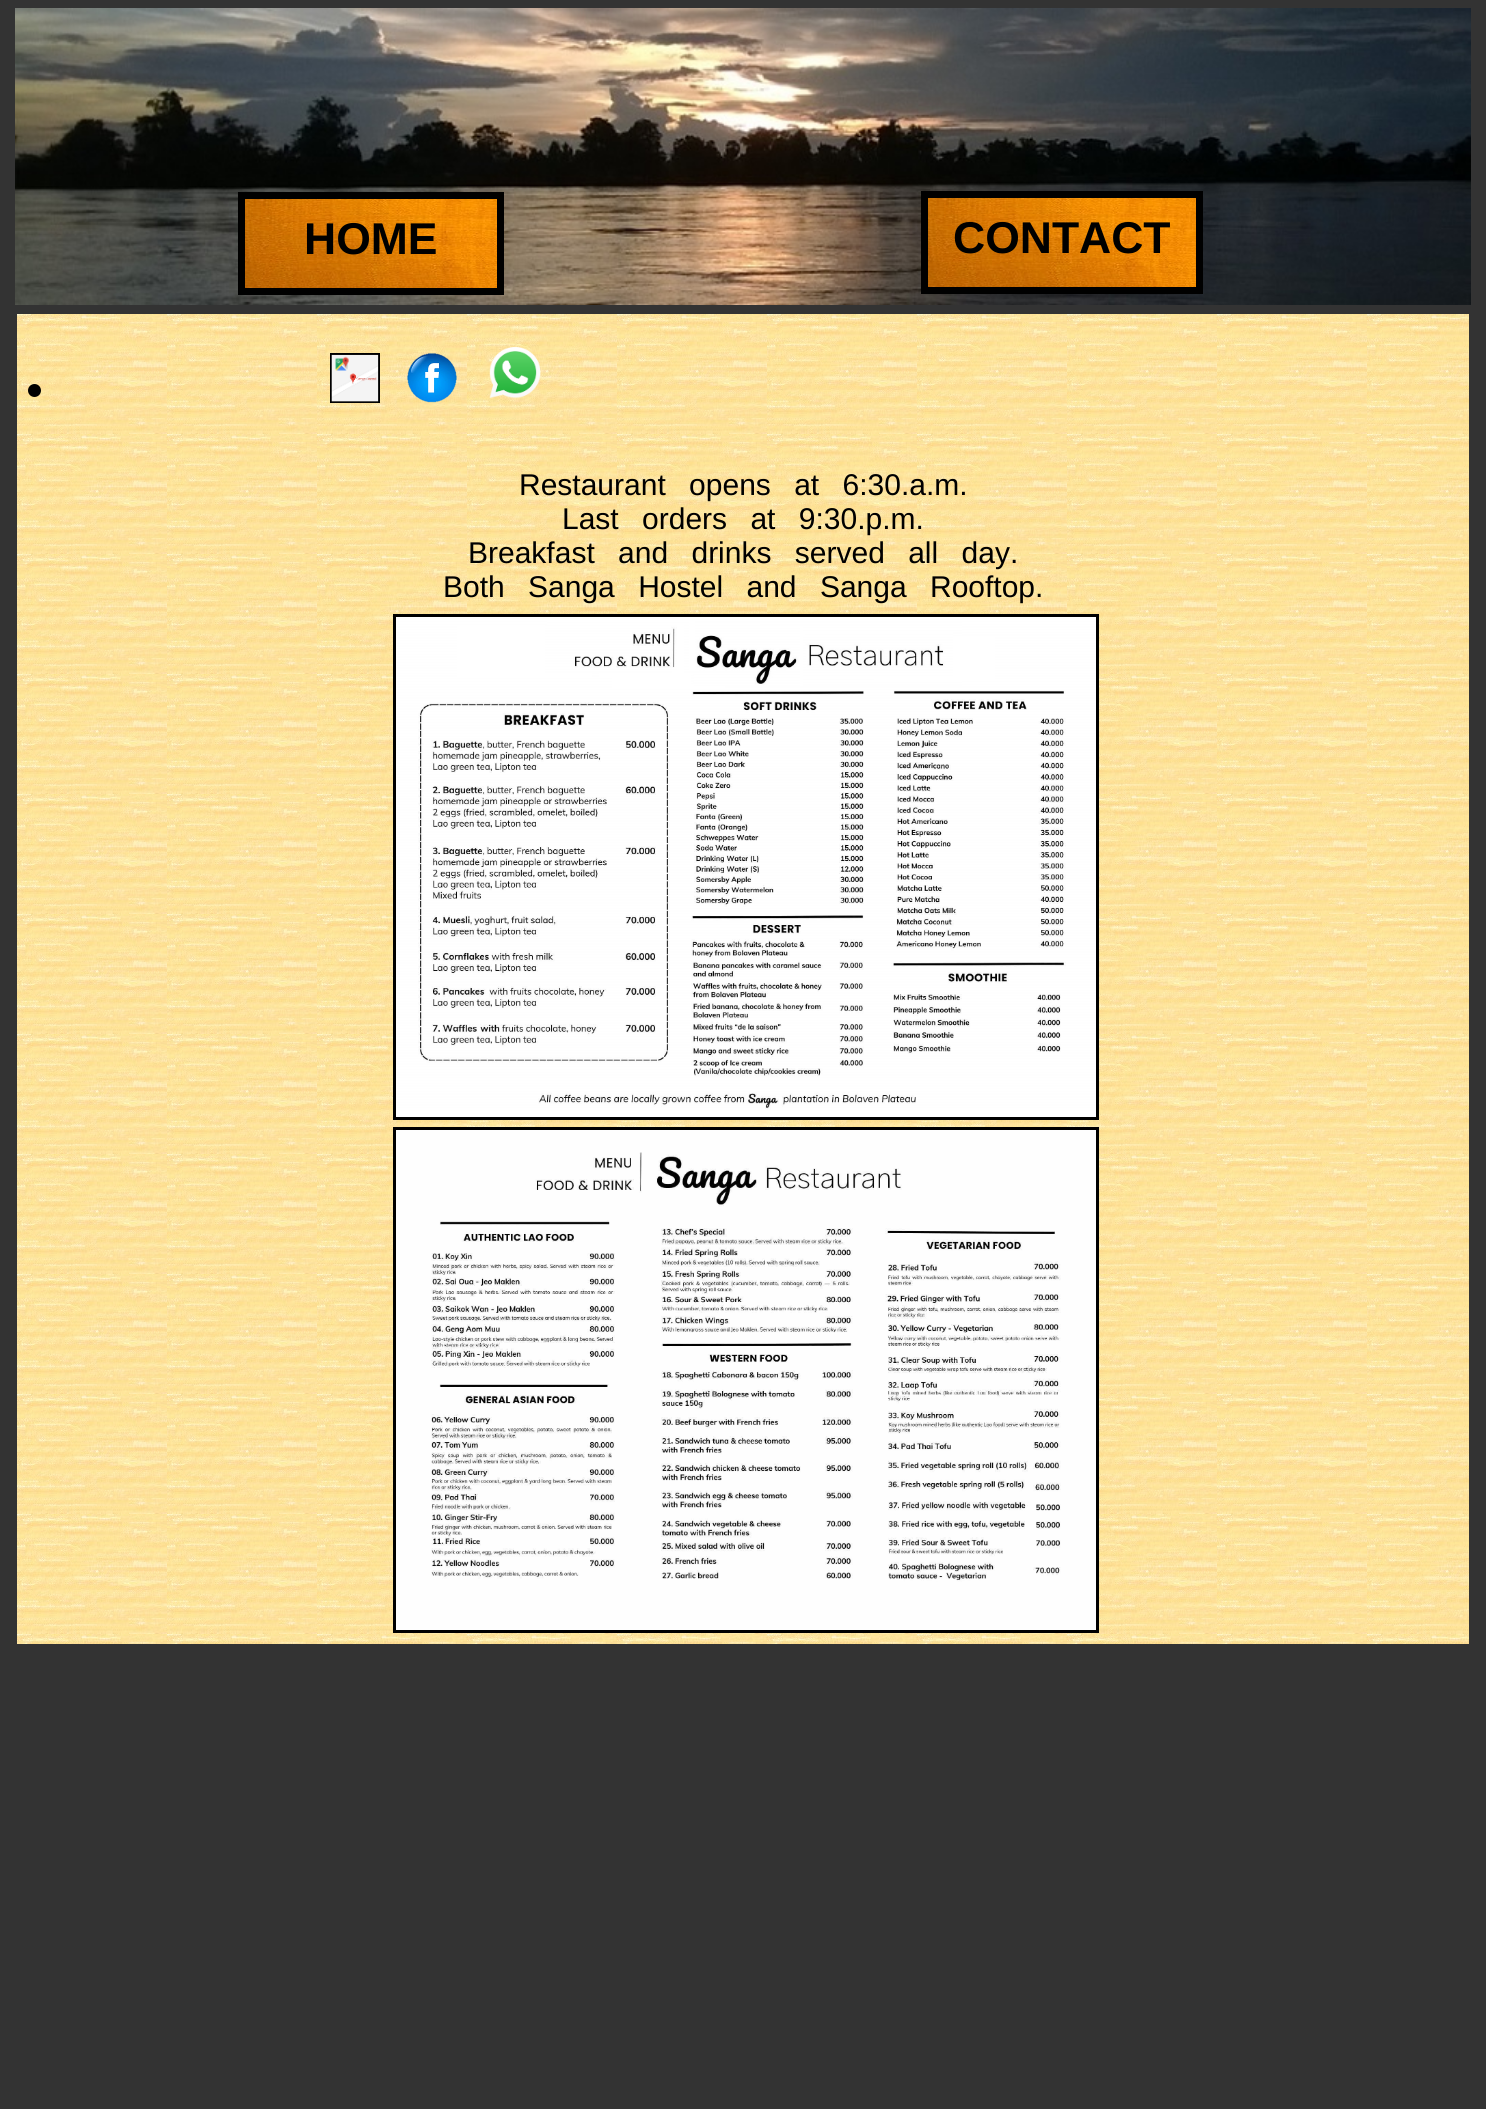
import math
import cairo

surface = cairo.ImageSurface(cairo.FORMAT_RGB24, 1486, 2109)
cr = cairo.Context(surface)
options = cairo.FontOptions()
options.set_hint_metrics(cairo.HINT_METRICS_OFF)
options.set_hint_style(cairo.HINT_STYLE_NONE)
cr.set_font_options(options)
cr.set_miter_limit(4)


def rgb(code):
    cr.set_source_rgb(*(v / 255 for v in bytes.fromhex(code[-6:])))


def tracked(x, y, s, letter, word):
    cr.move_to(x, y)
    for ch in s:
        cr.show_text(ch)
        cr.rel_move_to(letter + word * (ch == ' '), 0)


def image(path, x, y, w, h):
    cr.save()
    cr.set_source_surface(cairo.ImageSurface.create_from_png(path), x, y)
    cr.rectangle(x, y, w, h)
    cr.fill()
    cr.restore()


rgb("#333333")
cr.paint()
image("img/1.png", 15, 8, 1456, 297)
image("img/2.png", 245, 199, 252, 89)
cr.rectangle(241.5, 195.5, 259, 96)
rgb("#000000")
cr.set_line_width(7)
cr.stroke()
image("img/3.png", 928, 198, 268, 89)
cr.rectangle(924.5, 194.5, 275, 96)
cr.stroke()
image("img/4.png", 17, 314, 1452, 1330)
cr.arc(34.5, 390.5, 6.5, 0, 2 * math.pi)
cr.fill()
image("img/5.png", 330, 353, 50, 50)
image("img/6.png", 407, 353, 50, 50)
image("img/7.png", 489, 347, 52, 52)
cr.rectangle(394.5, 615.5, 703, 503)
cr.set_line_width(3)
cr.stroke()
image("img/8.png", 396, 617, 700, 500)
cr.rectangle(394.5, 1128.5, 703, 503)
cr.stroke()
image("img/9.png", 396, 1130, 700, 500)
cr.select_font_face("Liberation Sans", cairo.FONT_SLANT_NORMAL, cairo.FONT_WEIGHT_BOLD)
cr.set_font_size(44.5)
cr.move_to(304, 254)
cr.show_text("HOME")
cr.move_to(953, 253)
cr.show_text("CONTACT")
cr.select_font_face("Liberation Sans")
cr.set_font_size(30)
for x, y, s in [
    (519, 495, "Restaurant opens at 6:30.a.m."),
    (562, 529, "Last orders at 9:30.p.m."),
    (468, 563, "Breakfast and drinks served all day."),
    (443, 597, "Both Sanga Hostel and Sanga Rooftop."),
]:
    tracked(x, y, s, 0, 15)
surface.write_to_png("page.png")
